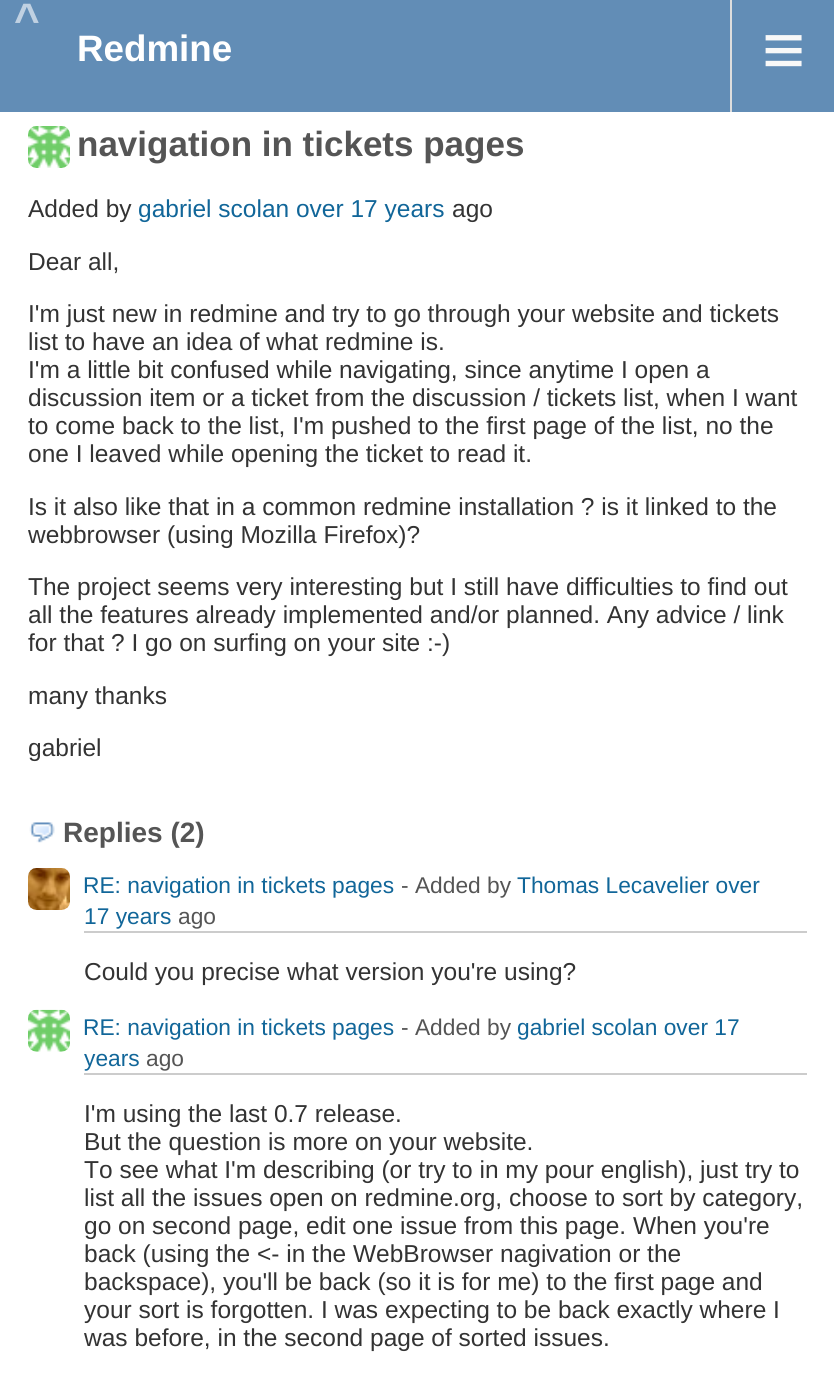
import math
import cairo

surface = cairo.ImageSurface(cairo.FORMAT_RGB24, 834, 1387)
cr = cairo.Context(surface)
options = cairo.FontOptions()
options.set_hint_metrics(cairo.HINT_METRICS_OFF)
options.set_hint_style(cairo.HINT_STYLE_NONE)
cr.set_font_options(options)
cr.set_miter_limit(4)


def rgb(code):
    cr.set_source_rgb(*(v / 255 for v in bytes.fromhex(code[-6:])))


def tracked(x, y, s, letter, word):
    cr.move_to(x, y)
    for ch in s:
        cr.show_text(ch)
        cr.rel_move_to(letter + word * (ch == ' '), 0)


def image(path, x, y, w, h):
    cr.save()
    cr.set_source_surface(cairo.ImageSurface.create_from_png(path), x, y)
    cr.rectangle(x, y, w, h)
    cr.fill()
    cr.restore()


rgb("#ffffff")
cr.paint()
rgb("#628db6")
cr.rectangle(0, 0, 834, 112)
cr.fill()
rgb("#dddddd")
cr.rectangle(730, 0, 2, 112)
cr.fill()
image("img/1.png", 28, 126, 42, 42)
image("img/2.png", 29, 822, 26, 21)
rgb("#cccccc")
cr.rectangle(84, 931, 723, 2)
cr.fill()
image("img/3.png", 28, 868, 42, 42)
cr.rectangle(84, 1073, 723, 2)
cr.fill()
image("img/4.png", 28, 1009, 42, 43)
cr.select_font_face("Liberation Sans", cairo.FONT_SLANT_NORMAL, cairo.FONT_WEIGHT_BOLD)
cr.set_font_size(44)
rgb("#c0d1e2")
tracked(14, 34, "^", 6, 0)
cr.set_font_size(36.75)
rgb("#ffffff")
cr.move_to(77, 61)
cr.show_text("Redmine")
cr.select_font_face("Liberation Sans")
cr.set_font_size(74)
rgb("#f8f8f8")
cr.move_to(762, 75)
cr.show_text("≡")
cr.select_font_face("Liberation Sans", cairo.FONT_SLANT_NORMAL, cairo.FONT_WEIGHT_BOLD)
cr.set_font_size(35)
rgb("#555555")
cr.move_to(77, 156)
cr.show_text("navigation in tickets pages")
cr.select_font_face("Liberation Sans")
cr.set_font_size(24.5)
rgb("#333333")
cr.move_to(28, 217)
cr.show_text("Added by")
rgb("#116699")
cr.move_to(138, 217)
cr.show_text("gabriel scolan over 17 years")
rgb("#333333")
for x, y, s in [
    (452, 217, "ago"),
    (28, 270, "Dear all,"),
    (28, 322, "I'm just new in redmine and try to go through your website and tickets"),
    (28, 350, "list to have an idea of what redmine is."),
    (28, 378, "I'm a little bit confused while navigating, since anytime I open a"),
    (28, 406, "discussion item or a ticket from the discussion / tickets list, when I want"),
    (28, 434, "to come back to the list, I'm pushed to the first page of the list, no the"),
    (28, 462, "one I leaved while opening the ticket to read it."),
    (28, 515, "Is it also like that in a common redmine installation ? is it linked to the"),
    (28, 543, "webbrowser (using Mozilla Firefox)?"),
    (28, 595, "The project seems very interesting but I still have difficulties to find out"),
    (28, 623, "all the features already implemented and/or planned. Any advice / link"),
    (28, 651, "for that ? I go on surfing on your site :-)"),
    (28, 704, "many thanks"),
    (28, 756, "gabriel"),
]:
    cr.move_to(x, y)
    cr.show_text(s)
cr.select_font_face("Liberation Sans", cairo.FONT_SLANT_NORMAL, cairo.FONT_WEIGHT_BOLD)
cr.set_font_size(28)
rgb("#555555")
cr.move_to(63, 842)
cr.show_text("Replies (2)")
cr.select_font_face("Liberation Sans")
cr.set_font_size(22.75)
rgb("#116699")
cr.move_to(83, 893)
cr.show_text("RE: navigation in tickets pages")
rgb("#555555")
cr.move_to(401, 893)
cr.show_text("- Added by")
rgb("#116699")
cr.move_to(517, 893)
cr.show_text("Thomas Lecavelier over")
cr.move_to(84, 924)
cr.show_text("17 years")
rgb("#555555")
cr.move_to(178, 924)
cr.show_text("ago")
cr.set_font_size(24.5)
rgb("#333333")
cr.move_to(84, 980)
cr.show_text("Could you precise what version you're using?")
cr.set_font_size(22.75)
rgb("#116699")
cr.move_to(83, 1035)
cr.show_text("RE: navigation in tickets pages")
rgb("#555555")
cr.move_to(401, 1035)
cr.show_text("- Added by")
rgb("#116699")
cr.move_to(517, 1035)
cr.show_text("gabriel scolan over 17")
cr.move_to(84, 1066)
cr.show_text("years")
rgb("#555555")
cr.move_to(146, 1066)
cr.show_text("ago")
cr.set_font_size(24.5)
rgb("#333333")
for x, y, s in [
    (84, 1122, "I'm using the last 0.7 release."),
    (84, 1150, "But the question is more on your website."),
    (84, 1178, "To see what I'm describing (or try to in my pour english), just try to"),
    (84, 1206, "list all the issues open on redmine.org, choose to sort by category,"),
    (84, 1234, "go on second page, edit one issue from this page. When you're"),
    (84, 1262, "back (using the <- in the WebBrowser nagivation or the"),
    (84, 1290, "backspace), you'll be back (so it is for me) to the first page and"),
    (84, 1318, "your sort is forgotten. I was expecting to be back exactly where I"),
    (84, 1346, "was before, in the second page of sorted issues."),
]:
    cr.move_to(x, y)
    cr.show_text(s)
surface.write_to_png("page.png")
